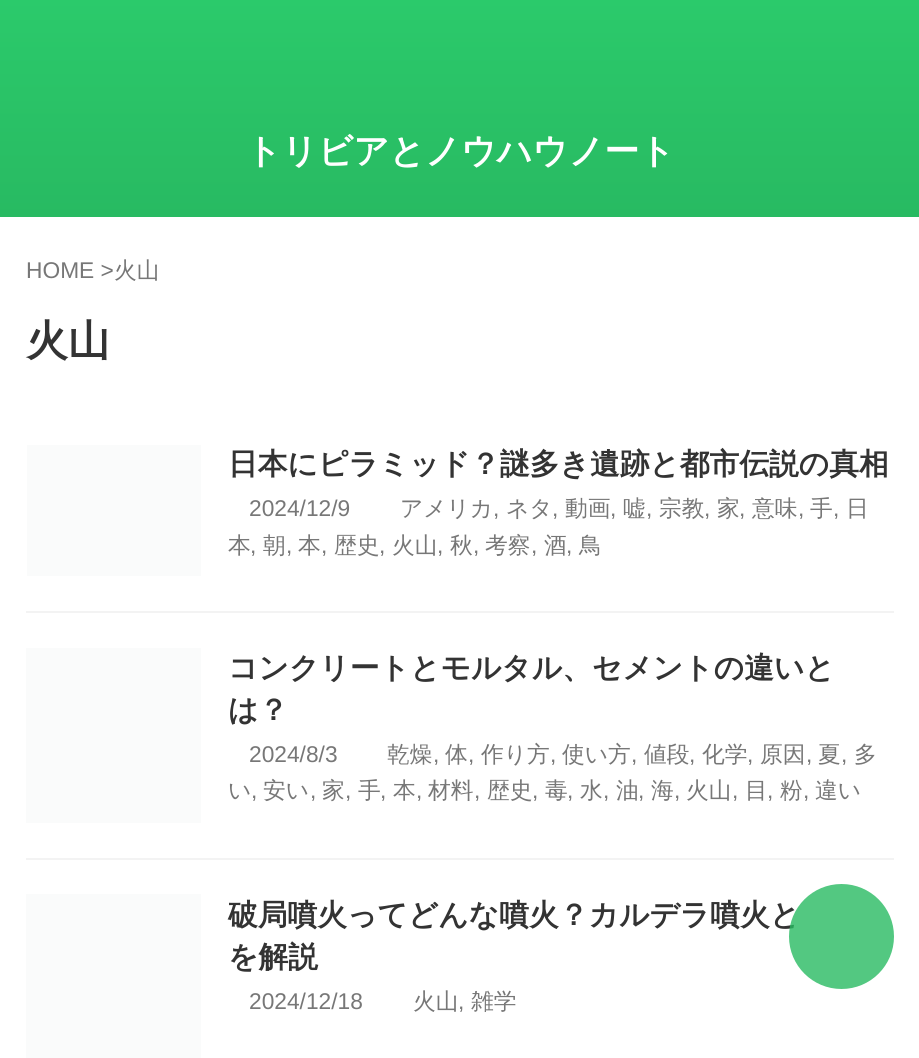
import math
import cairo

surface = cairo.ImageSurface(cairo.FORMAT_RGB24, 919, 1058)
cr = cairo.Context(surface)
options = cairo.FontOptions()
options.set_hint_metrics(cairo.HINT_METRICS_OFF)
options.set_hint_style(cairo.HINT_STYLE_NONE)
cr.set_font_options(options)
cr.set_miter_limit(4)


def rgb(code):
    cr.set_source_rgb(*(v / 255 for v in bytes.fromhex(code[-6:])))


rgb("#ffffff")
cr.paint()
gradient = cairo.LinearGradient(460, 0, 460, 217)
gradient.add_color_stop_rgba(0, 0.169, 0.792, 0.42, 1)
gradient.add_color_stop_rgba(1, 0.157, 0.729, 0.384, 1)
cr.set_source(gradient)
cr.rectangle(0, 0, 919, 217)
cr.fill()
for x, y, w, h, color in [
    (26, 611, 868, 2, "#f3f3f3"),
    (27, 445, 174, 131, "#fafbfb"),
    (26, 858, 868, 2, "#f3f3f3"),
    (26, 648, 175, 175, "#fafbfb"),
    (26, 894, 175, 164, "#fafbfb"),
]:
    rgb(color)
    cr.rectangle(x, y, w, h)
    cr.fill()
cr.select_font_face("WenQuanYi Zen Hei", cairo.FONT_SLANT_NORMAL, cairo.FONT_WEIGHT_BOLD)
cr.set_font_size(35)
rgb("#ffffff")
cr.move_to(246, 163)
cr.show_text("トリビアとノウハウノート")
cr.select_font_face("Liberation Sans")
cr.set_font_size(22.75)
rgb("#777777")
cr.move_to(26, 278)
cr.show_text("HOME >")
cr.select_font_face("WenQuanYi Zen Hei Medium")
cr.move_to(114, 278)
cr.show_text("火山")
cr.select_font_face("WenQuanYi Zen Hei", cairo.FONT_SLANT_NORMAL, cairo.FONT_WEIGHT_BOLD)
cr.set_font_size(42)
rgb("#333333")
cr.move_to(26, 355)
cr.show_text("火山")
cr.set_font_size(29.75)
cr.move_to(228, 474)
cr.show_text("日本にピラミッド？謎多き遺跡と都市伝説の真相")
cr.select_font_face("Liberation Sans")
cr.set_font_size(22.75)
rgb("#777777")
cr.move_to(249, 516)
cr.show_text("2024/12/9")
cr.select_font_face("WenQuanYi Zen Hei Medium")
cr.move_to(400, 516)
cr.show_text("アメリカ")
cr.select_font_face("Liberation Sans")
cr.move_to(493, 516)
cr.show_text(",")
cr.select_font_face("WenQuanYi Zen Hei Medium")
cr.move_to(506, 516)
cr.show_text("ネタ")
cr.select_font_face("Liberation Sans")
cr.move_to(552, 516)
cr.show_text(",")
cr.select_font_face("WenQuanYi Zen Hei Medium")
cr.move_to(565, 516)
cr.show_text("動画")
cr.select_font_face("Liberation Sans")
cr.move_to(610, 516)
cr.show_text(",")
cr.select_font_face("WenQuanYi Zen Hei Medium")
cr.move_to(623, 516)
cr.show_text("嘘")
cr.select_font_face("Liberation Sans")
cr.move_to(646, 516)
cr.show_text(",")
cr.select_font_face("WenQuanYi Zen Hei Medium")
cr.move_to(659, 516)
cr.show_text("宗教")
cr.select_font_face("Liberation Sans")
cr.move_to(704, 516)
cr.show_text(",")
cr.select_font_face("WenQuanYi Zen Hei Medium")
cr.move_to(717, 516)
cr.show_text("家")
cr.select_font_face("Liberation Sans")
cr.move_to(739, 516)
cr.show_text(",")
cr.select_font_face("WenQuanYi Zen Hei Medium")
cr.move_to(752, 516)
cr.show_text("意味")
cr.select_font_face("Liberation Sans")
cr.move_to(798, 516)
cr.show_text(",")
cr.select_font_face("WenQuanYi Zen Hei Medium")
cr.move_to(810, 516)
cr.show_text("手")
cr.select_font_face("Liberation Sans")
cr.move_to(833, 516)
cr.show_text(",")
cr.select_font_face("WenQuanYi Zen Hei Medium")
cr.move_to(846, 516)
cr.show_text("日")
cr.move_to(228, 553)
cr.show_text("本")
cr.select_font_face("Liberation Sans")
cr.move_to(250, 553)
cr.show_text(",")
cr.select_font_face("WenQuanYi Zen Hei Medium")
cr.move_to(263, 553)
cr.show_text("朝")
cr.select_font_face("Liberation Sans")
cr.move_to(286, 553)
cr.show_text(",")
cr.select_font_face("WenQuanYi Zen Hei Medium")
cr.move_to(298, 553)
cr.show_text("本")
cr.select_font_face("Liberation Sans")
cr.move_to(321, 553)
cr.show_text(",")
cr.select_font_face("WenQuanYi Zen Hei Medium")
cr.move_to(334, 553)
cr.show_text("歴史")
cr.select_font_face("Liberation Sans")
cr.move_to(379, 553)
cr.show_text(",")
cr.select_font_face("WenQuanYi Zen Hei Medium")
cr.move_to(392, 553)
cr.show_text("火山")
cr.select_font_face("Liberation Sans")
cr.move_to(437, 553)
cr.show_text(",")
cr.select_font_face("WenQuanYi Zen Hei Medium")
cr.move_to(450, 553)
cr.show_text("秋")
cr.select_font_face("Liberation Sans")
cr.move_to(473, 553)
cr.show_text(",")
cr.select_font_face("WenQuanYi Zen Hei Medium")
cr.move_to(485, 553)
cr.show_text("考察")
cr.select_font_face("Liberation Sans")
cr.move_to(531, 553)
cr.show_text(",")
cr.select_font_face("WenQuanYi Zen Hei Medium")
cr.move_to(544, 553)
cr.show_text("酒")
cr.select_font_face("Liberation Sans")
cr.move_to(566, 553)
cr.show_text(",")
cr.select_font_face("WenQuanYi Zen Hei Medium")
cr.move_to(579, 553)
cr.show_text("鳥")
cr.select_font_face("WenQuanYi Zen Hei", cairo.FONT_SLANT_NORMAL, cairo.FONT_WEIGHT_BOLD)
cr.set_font_size(29.75)
rgb("#333333")
cr.move_to(228, 678)
cr.show_text("コンクリートとモルタル、セメントの違いと")
cr.move_to(228, 720)
cr.show_text("は？")
cr.select_font_face("Liberation Sans")
cr.set_font_size(22.75)
rgb("#777777")
cr.move_to(249, 762)
cr.show_text("2024/8/3")
cr.select_font_face("WenQuanYi Zen Hei Medium")
cr.move_to(387, 762)
cr.show_text("乾燥")
cr.select_font_face("Liberation Sans")
cr.move_to(433, 762)
cr.show_text(",")
cr.select_font_face("WenQuanYi Zen Hei Medium")
cr.move_to(445, 762)
cr.show_text("体")
cr.select_font_face("Liberation Sans")
cr.move_to(468, 762)
cr.show_text(",")
cr.select_font_face("WenQuanYi Zen Hei Medium")
cr.move_to(481, 762)
cr.show_text("作り方")
cr.select_font_face("Liberation Sans")
cr.move_to(550, 762)
cr.show_text(",")
cr.select_font_face("WenQuanYi Zen Hei Medium")
cr.move_to(562, 762)
cr.show_text("使い方")
cr.select_font_face("Liberation Sans")
cr.move_to(631, 762)
cr.show_text(",")
cr.select_font_face("WenQuanYi Zen Hei Medium")
cr.move_to(644, 762)
cr.show_text("値段")
cr.select_font_face("Liberation Sans")
cr.move_to(689, 762)
cr.show_text(",")
cr.select_font_face("WenQuanYi Zen Hei Medium")
cr.move_to(702, 762)
cr.show_text("化学")
cr.select_font_face("Liberation Sans")
cr.move_to(747, 762)
cr.show_text(",")
cr.select_font_face("WenQuanYi Zen Hei Medium")
cr.move_to(760, 762)
cr.show_text("原因")
cr.select_font_face("Liberation Sans")
cr.move_to(806, 762)
cr.show_text(",")
cr.select_font_face("WenQuanYi Zen Hei Medium")
cr.move_to(818, 762)
cr.show_text("夏")
cr.select_font_face("Liberation Sans")
cr.move_to(841, 762)
cr.show_text(",")
cr.select_font_face("WenQuanYi Zen Hei Medium")
cr.move_to(854, 762)
cr.show_text("多")
cr.move_to(228, 798)
cr.show_text("い")
cr.select_font_face("Liberation Sans")
cr.move_to(251, 798)
cr.show_text(",")
cr.select_font_face("WenQuanYi Zen Hei Medium")
cr.move_to(263, 798)
cr.show_text("安い")
cr.select_font_face("Liberation Sans")
cr.move_to(310, 798)
cr.show_text(",")
cr.select_font_face("WenQuanYi Zen Hei Medium")
cr.move_to(322, 798)
cr.show_text("家")
cr.select_font_face("Liberation Sans")
cr.move_to(345, 798)
cr.show_text(",")
cr.select_font_face("WenQuanYi Zen Hei Medium")
cr.move_to(358, 798)
cr.show_text("手")
cr.select_font_face("Liberation Sans")
cr.move_to(380, 798)
cr.show_text(",")
cr.select_font_face("WenQuanYi Zen Hei Medium")
cr.move_to(393, 798)
cr.show_text("本")
cr.select_font_face("Liberation Sans")
cr.move_to(416, 798)
cr.show_text(",")
cr.select_font_face("WenQuanYi Zen Hei Medium")
cr.move_to(428, 798)
cr.show_text("材料")
cr.select_font_face("Liberation Sans")
cr.move_to(474, 798)
cr.show_text(",")
cr.select_font_face("WenQuanYi Zen Hei Medium")
cr.move_to(487, 798)
cr.show_text("歴史")
cr.select_font_face("Liberation Sans")
cr.move_to(532, 798)
cr.show_text(",")
cr.select_font_face("WenQuanYi Zen Hei Medium")
cr.move_to(545, 798)
cr.show_text("毒")
cr.select_font_face("Liberation Sans")
cr.move_to(567, 798)
cr.show_text(",")
cr.select_font_face("WenQuanYi Zen Hei Medium")
cr.move_to(580, 798)
cr.show_text("水")
cr.select_font_face("Liberation Sans")
cr.move_to(603, 798)
cr.show_text(",")
cr.select_font_face("WenQuanYi Zen Hei Medium")
cr.move_to(616, 798)
cr.show_text("油")
cr.select_font_face("Liberation Sans")
cr.move_to(638, 798)
cr.show_text(",")
cr.select_font_face("WenQuanYi Zen Hei Medium")
cr.move_to(651, 798)
cr.show_text("海")
cr.select_font_face("Liberation Sans")
cr.move_to(674, 798)
cr.show_text(",")
cr.select_font_face("WenQuanYi Zen Hei Medium")
cr.move_to(686, 798)
cr.show_text("火山")
cr.select_font_face("Liberation Sans")
cr.move_to(732, 798)
cr.show_text(",")
cr.select_font_face("WenQuanYi Zen Hei Medium")
cr.move_to(745, 798)
cr.show_text("目")
cr.select_font_face("Liberation Sans")
cr.move_to(767, 798)
cr.show_text(",")
cr.select_font_face("WenQuanYi Zen Hei Medium")
cr.move_to(780, 798)
cr.show_text("粉")
cr.select_font_face("Liberation Sans")
cr.move_to(803, 798)
cr.show_text(",")
cr.select_font_face("WenQuanYi Zen Hei Medium")
cr.move_to(815, 798)
cr.show_text("違い")
cr.select_font_face("WenQuanYi Zen Hei", cairo.FONT_SLANT_NORMAL, cairo.FONT_WEIGHT_BOLD)
cr.set_font_size(29.75)
rgb("#333333")
cr.move_to(228, 925)
cr.show_text("破局噴火ってどんな噴火？カルデラ噴火と")
cr.move_to(228, 967)
cr.show_text("を解説")
cr.select_font_face("Liberation Sans")
cr.set_font_size(22.75)
rgb("#777777")
cr.move_to(249, 1009)
cr.show_text("2024/12/18")
cr.select_font_face("WenQuanYi Zen Hei Medium")
cr.move_to(413, 1009)
cr.show_text("火山")
cr.select_font_face("Liberation Sans")
cr.move_to(458, 1009)
cr.show_text(",")
cr.select_font_face("WenQuanYi Zen Hei Medium")
cr.move_to(471, 1009)
cr.show_text("雑学")
cr.set_source_rgba(0.157, 0.729, 0.384, 0.8)
cr.new_path()
cr.arc(841.5, 936.5, 52.5, 0, 2 * math.pi)
cr.fill()
surface.write_to_png("page.png")
